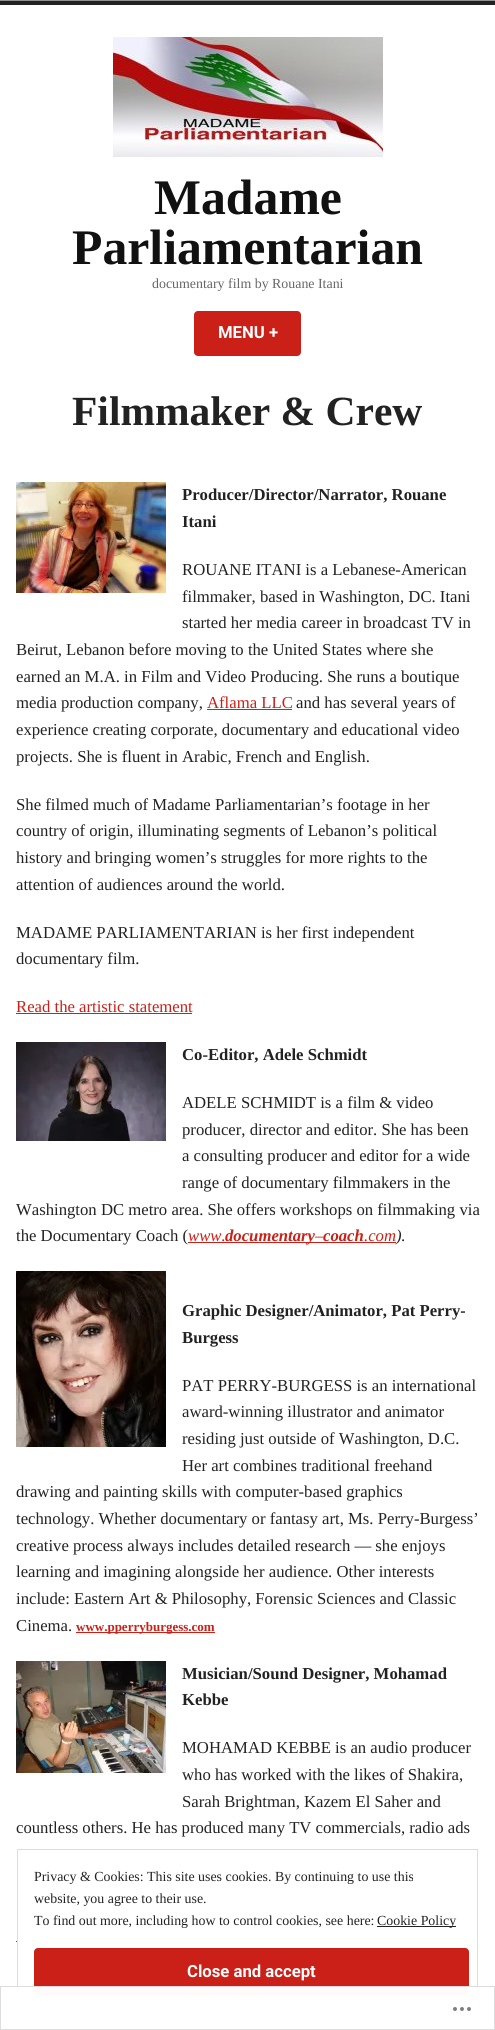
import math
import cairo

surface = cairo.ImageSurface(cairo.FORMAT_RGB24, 495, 2030)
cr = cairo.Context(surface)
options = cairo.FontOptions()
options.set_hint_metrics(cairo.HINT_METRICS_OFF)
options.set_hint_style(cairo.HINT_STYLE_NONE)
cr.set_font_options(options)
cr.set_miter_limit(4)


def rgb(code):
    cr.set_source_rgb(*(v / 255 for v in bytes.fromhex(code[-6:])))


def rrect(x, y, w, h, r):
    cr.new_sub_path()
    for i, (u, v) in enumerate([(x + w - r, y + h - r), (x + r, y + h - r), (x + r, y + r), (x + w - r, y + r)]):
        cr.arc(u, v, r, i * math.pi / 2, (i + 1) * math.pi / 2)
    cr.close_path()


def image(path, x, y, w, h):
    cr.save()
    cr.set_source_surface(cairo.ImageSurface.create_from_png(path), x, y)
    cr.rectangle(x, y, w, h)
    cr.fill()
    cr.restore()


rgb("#ffffff")
cr.paint()
rgb("#222222")
cr.rectangle(0, 1, 495, 4)
cr.fill()
rgb("#919191")
cr.rectangle(0, 0, 495, 1)
cr.fill()
image("img/1.png", 113, 37, 270, 120)
rgb("#ca2017")
rrect(194, 311, 107, 45, 4)
cr.fill()
image("img/2.png", 16, 482, 150, 111)
cr.rectangle(207, 709, 85, 1)
cr.fill()
cr.rectangle(16, 1013, 176, 1)
cr.fill()
image("img/3.png", 16, 1042, 150, 99)
cr.rectangle(188, 1242, 208, 1)
cr.fill()
image("img/4.png", 16, 1271, 150, 176)
cr.rectangle(76, 1632, 139, 1)
cr.fill()
image("img/5.png", 16, 1661, 150, 112)
cr.rectangle(16, 1941, 1, 1)
cr.fill()
cr.rectangle(17.5, 1849.5, 460, 163)
rgb("#dddddd")
cr.set_line_width(1)
cr.stroke()
rgb("#222222")
cr.rectangle(377, 1926, 79, 1)
cr.fill()
rgb("#ca2017")
rrect(34, 1948, 435, 48, 4)
cr.fill()
cr.set_source_rgba(1, 1, 1, 0.98)
cr.rectangle(17, 1986, 461, 27)
cr.fill()
cr.rectangle(0.5, 1986.5, 494, 43)
cr.set_source_rgba(0.863, 0.863, 0.871, 0.98)
cr.stroke()
image("img/6.png", 453, 2007, 18, 4)
cr.select_font_face("Liberation Serif", cairo.FONT_SLANT_NORMAL, cairo.FONT_WEIGHT_BOLD)
cr.set_font_size(49.75)
rgb("#111111")
cr.move_to(154, 214)
cr.show_text("Madame")
cr.move_to(72, 264)
cr.show_text("Parliamentarian")
cr.select_font_face("Liberation Serif")
cr.set_font_size(13.9)
rgb("#666666")
cr.move_to(152, 288)
cr.show_text("documentary film by Rouane Itani")
cr.select_font_face("Roboto", cairo.FONT_SLANT_NORMAL, cairo.FONT_WEIGHT_BOLD)
cr.set_font_size(16.7)
rgb("#ffffff")
cr.move_to(218, 338)
cr.show_text("MENU +")
cr.select_font_face("Liberation Serif", cairo.FONT_SLANT_NORMAL, cairo.FONT_WEIGHT_BOLD)
cr.set_font_size(41.5)
rgb("#222222")
cr.move_to(72, 425)
cr.show_text("Filmmaker & Crew")
cr.set_font_size(16.7)
cr.move_to(182, 500)
cr.show_text("Producer/Director/Narrator, Rouane")
cr.move_to(182, 527)
cr.show_text("Itani")
cr.select_font_face("Liberation Serif")
for x, y, s in [
    (182, 575, "ROUANE ITANI is a Lebanese-American"),
    (182, 602, "filmmaker, based in Washington, DC. Itani"),
    (182, 628, "started her media career in broadcast TV in"),
    (16, 655, "Beirut, Lebanon before moving to the United States where she"),
    (16, 682, "earned an M.A. in Film and Video Producing. She runs a boutique"),
    (16, 708, "media production company,"),
]:
    cr.move_to(x, y)
    cr.show_text(s)
rgb("#ca2017")
cr.move_to(207, 708)
cr.show_text("Aflama LLC")
rgb("#222222")
for x, y, s in [
    (296, 708, "and has several years of"),
    (16, 735, "experience creating corporate, documentary and educational video"),
    (16, 762, "projects. She is fluent in Arabic, French and English."),
    (16, 810, "She filmed much of Madame Parliamentarian’s footage in her"),
    (16, 836, "country of origin, illuminating segments of Lebanon’s political"),
    (16, 863, "history and bringing women’s struggles for more rights to the"),
    (16, 890, "attention of audiences around the world."),
    (16, 938, "MADAME PARLIAMENTARIAN is her first independent"),
    (16, 964, "documentary film."),
]:
    cr.move_to(x, y)
    cr.show_text(s)
rgb("#ca2017")
cr.move_to(16, 1012)
cr.show_text("Read the artistic statement")
cr.select_font_face("Liberation Serif", cairo.FONT_SLANT_NORMAL, cairo.FONT_WEIGHT_BOLD)
rgb("#222222")
cr.move_to(182, 1060)
cr.show_text("Co-Editor, Adele Schmidt")
cr.select_font_face("Liberation Serif")
for x, y, s in [
    (182, 1108, "ADELE SCHMIDT is a film & video"),
    (182, 1135, "producer, director and editor. She has been"),
    (182, 1161, "a consulting producer and editor for a wide"),
    (182, 1188, "range of documentary filmmakers in the"),
    (16, 1215, "Washington DC metro area. She offers workshops on filmmaking via"),
    (16, 1241, "the Documentary Coach ("),
]:
    cr.move_to(x, y)
    cr.show_text(s)
cr.select_font_face("Liberation Serif", cairo.FONT_SLANT_ITALIC)
rgb("#ca2017")
cr.move_to(188, 1241)
cr.show_text("www.")
cr.select_font_face("Liberation Serif", cairo.FONT_SLANT_ITALIC, cairo.FONT_WEIGHT_BOLD)
cr.move_to(225, 1241)
cr.show_text("documentary")
cr.select_font_face("Liberation Serif", cairo.FONT_SLANT_ITALIC)
cr.move_to(315, 1241)
cr.show_text("–")
cr.select_font_face("Liberation Serif", cairo.FONT_SLANT_ITALIC, cairo.FONT_WEIGHT_BOLD)
cr.move_to(323, 1241)
cr.show_text("coach")
cr.select_font_face("Liberation Serif", cairo.FONT_SLANT_ITALIC)
cr.move_to(364, 1241)
cr.show_text(".com")
rgb("#222222")
cr.move_to(396, 1241)
cr.show_text(")")
cr.select_font_face("Liberation Serif")
cr.move_to(401, 1241)
cr.show_text(".")
cr.select_font_face("Liberation Serif", cairo.FONT_SLANT_NORMAL, cairo.FONT_WEIGHT_BOLD)
cr.move_to(182, 1316)
cr.show_text("Graphic Designer/Animator, Pat Perry-")
cr.move_to(182, 1343)
cr.show_text("Burgess")
cr.select_font_face("Liberation Serif")
for x, y, s in [
    (182, 1391, "PAT PERRY-BURGESS is an international"),
    (182, 1417, "award-winning illustrator and animator"),
    (182, 1444, "residing just outside of Washington, D.C."),
    (182, 1471, "Her art combines traditional freehand"),
    (16, 1497, "drawing and painting skills with computer-based graphics"),
    (16, 1524, "technology. Whether documentary or fantasy art, Ms. Perry-Burgess’"),
    (16, 1551, "creative process always includes detailed research — she enjoys"),
    (16, 1577, "learning and imagining alongside her audience. Other interests"),
    (16, 1604, "include: Eastern Art & Philosophy, Forensic Sciences and Classic"),
    (16, 1631, "Cinema."),
]:
    cr.move_to(x, y)
    cr.show_text(s)
cr.select_font_face("Liberation Serif", cairo.FONT_SLANT_NORMAL, cairo.FONT_WEIGHT_BOLD)
cr.set_font_size(13)
rgb("#ca2017")
cr.move_to(76, 1631)
cr.show_text("www.pperryburgess.com")
cr.set_font_size(16.7)
rgb("#222222")
cr.move_to(182, 1679)
cr.show_text("Musician/Sound Designer, Mohamad")
cr.move_to(182, 1705)
cr.show_text("Kebbe")
cr.select_font_face("Liberation Serif")
for x, y, s in [
    (182, 1753, "MOHAMAD KEBBE is an audio producer"),
    (182, 1780, "who has worked with the likes of Shakira,"),
    (182, 1807, "Sarah Brightman, Kazem El Saher and"),
    (16, 1833, "countless others. He has produced many TV commercials, radio ads"),
]:
    cr.move_to(x, y)
    cr.show_text(s)
cr.set_font_size(13.9)
for x, y, s in [
    (34, 1881, "Privacy & Cookies: This site uses cookies. By continuing to use this"),
    (34, 1903, "website, you agree to their use."),
    (34, 1925, "To find out more, including how to control cookies, see here:"),
    (377, 1925, "Cookie Policy"),
]:
    cr.move_to(x, y)
    cr.show_text(s)
cr.select_font_face("Roboto", cairo.FONT_SLANT_NORMAL, cairo.FONT_WEIGHT_BOLD)
cr.set_font_size(16.7)
rgb("#ffffff")
cr.move_to(187, 1977)
cr.show_text("Close and accept")
surface.write_to_png("page.png")
